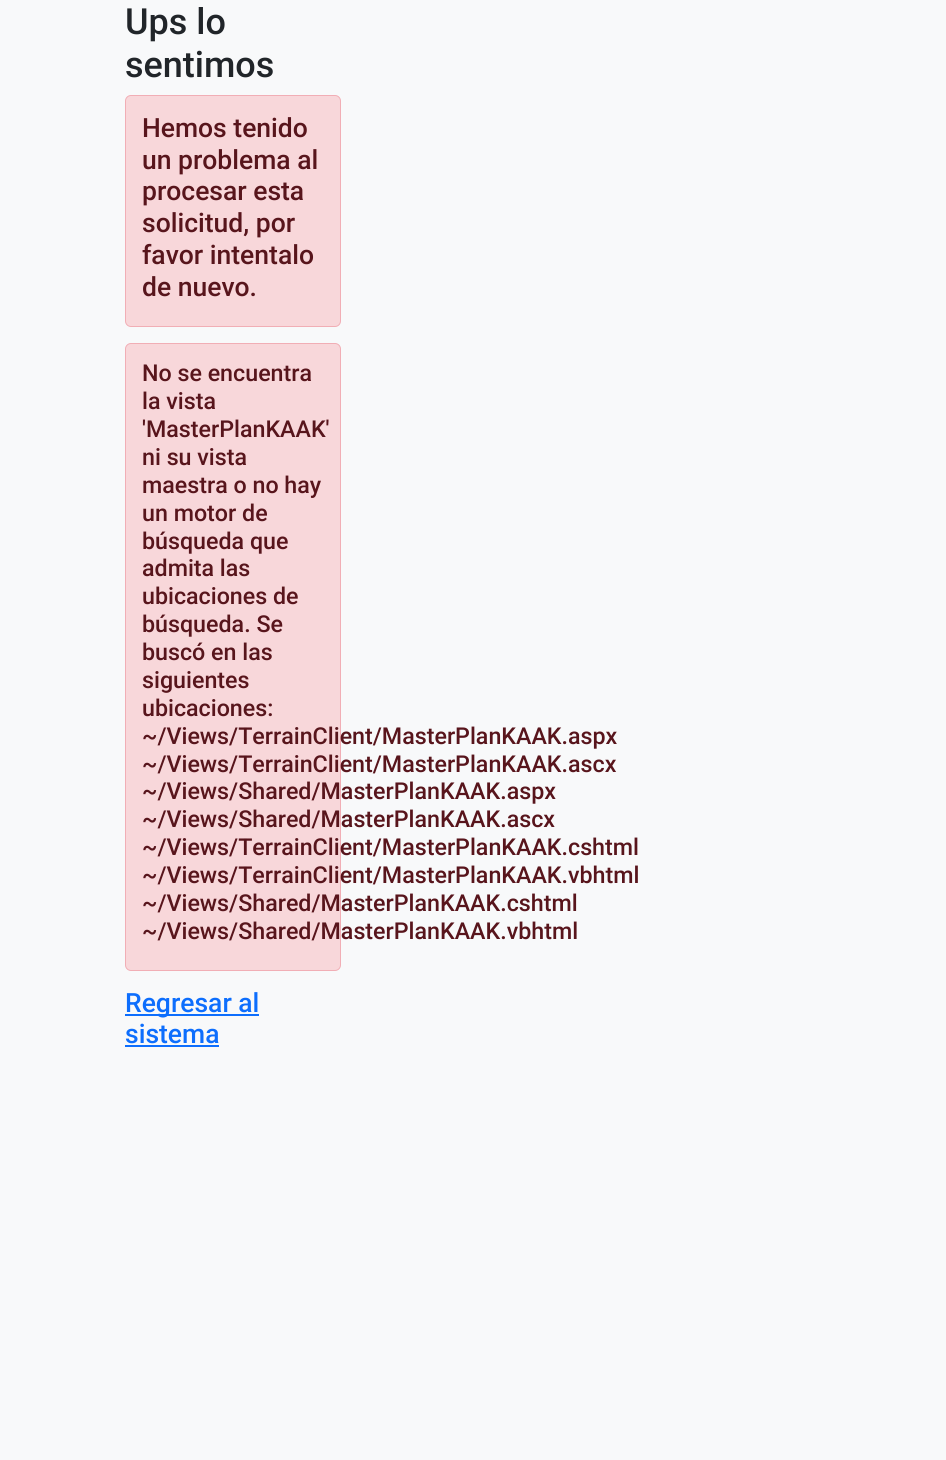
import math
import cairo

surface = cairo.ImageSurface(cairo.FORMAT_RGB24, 946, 1460)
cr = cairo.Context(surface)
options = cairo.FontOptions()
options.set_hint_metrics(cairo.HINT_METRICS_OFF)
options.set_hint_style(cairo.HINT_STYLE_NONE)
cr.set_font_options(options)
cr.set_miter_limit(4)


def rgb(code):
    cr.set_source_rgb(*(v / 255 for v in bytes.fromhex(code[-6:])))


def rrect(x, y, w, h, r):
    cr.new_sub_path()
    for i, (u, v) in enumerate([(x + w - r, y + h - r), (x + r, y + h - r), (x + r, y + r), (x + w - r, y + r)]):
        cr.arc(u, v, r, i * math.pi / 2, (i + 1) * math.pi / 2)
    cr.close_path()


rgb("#f8f9fa")
cr.paint()
rgb("#f8d7da")
rrect(125.5, 95.5, 215, 231, 5.5)
cr.fill_preserve()
rgb("#f1aeb5")
cr.set_line_width(1)
cr.stroke()
rgb("#f8d7da")
rrect(125.5, 343.5, 215, 627, 5.5)
cr.fill_preserve()
rgb("#f1aeb5")
cr.stroke()
rgb("#0d6efd")
cr.rectangle(125, 1014, 134, 2)
cr.fill()
cr.rectangle(125, 1045, 94, 2)
cr.fill()
cr.select_font_face("Roboto Medium")
cr.set_font_size(36)
rgb("#212529")
cr.move_to(125, 34)
cr.show_text("Ups lo")
cr.move_to(125, 77)
cr.show_text("sentimos")
cr.set_font_size(26.5)
rgb("#58151c")
for x, y, s in [
    (142, 137, "Hemos tenido"),
    (142, 169, "un problema al"),
    (142, 200, "procesar esta"),
    (142, 232, "solicitud, por"),
    (142, 264, "favor intentalo"),
    (142, 296, "de nuevo."),
]:
    cr.move_to(x, y)
    cr.show_text(s)
cr.set_font_size(23.25)
for x, y, s in [
    (142, 381, "No se encuentra"),
    (142, 409, "la vista"),
    (142, 437, "'MasterPlanKAAK'"),
    (142, 465, "ni su vista"),
    (142, 493, "maestra o no hay"),
    (142, 521, "un motor de"),
    (142, 549, "búsqueda que"),
    (142, 576, "admita las"),
    (142, 604, "ubicaciones de"),
    (142, 632, "búsqueda. Se"),
    (142, 660, "buscó en las"),
    (142, 688, "siguientes"),
    (142, 716, "ubicaciones:"),
    (142, 744, "~/Views/TerrainClient/MasterPlanKAAK.aspx"),
    (142, 772, "~/Views/TerrainClient/MasterPlanKAAK.ascx"),
    (142, 799, "~/Views/Shared/MasterPlanKAAK.aspx"),
    (142, 827, "~/Views/Shared/MasterPlanKAAK.ascx"),
    (142, 855, "~/Views/TerrainClient/MasterPlanKAAK.cshtml"),
    (142, 883, "~/Views/TerrainClient/MasterPlanKAAK.vbhtml"),
    (142, 911, "~/Views/Shared/MasterPlanKAAK.cshtml"),
    (142, 939, "~/Views/Shared/MasterPlanKAAK.vbhtml"),
]:
    cr.move_to(x, y)
    cr.show_text(s)
cr.set_font_size(26.5)
rgb("#0d6efd")
cr.move_to(125, 1012)
cr.show_text("Regresar al")
cr.move_to(125, 1043)
cr.show_text("sistema")
surface.write_to_png("page.png")
